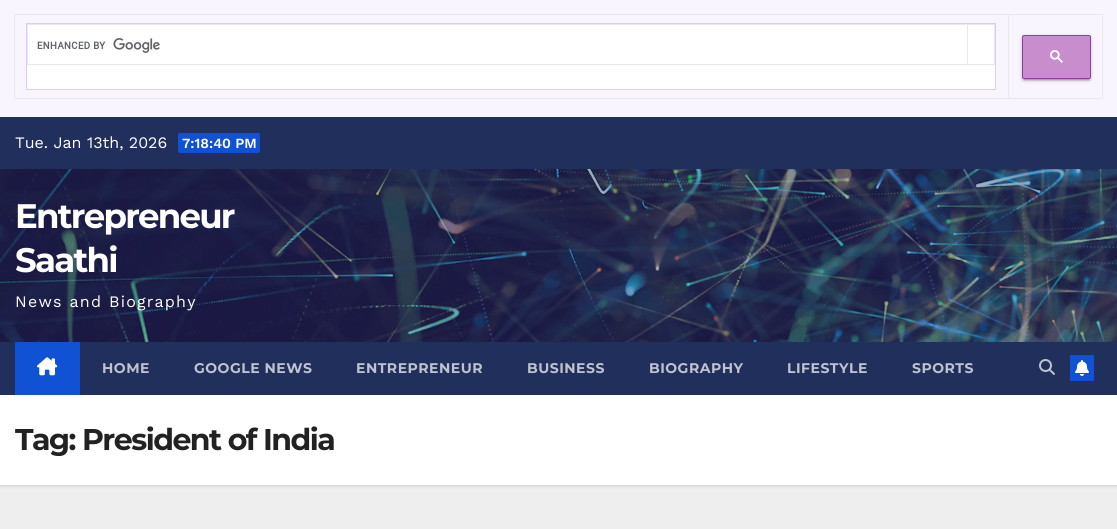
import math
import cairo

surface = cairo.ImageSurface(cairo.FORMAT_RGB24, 1117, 529)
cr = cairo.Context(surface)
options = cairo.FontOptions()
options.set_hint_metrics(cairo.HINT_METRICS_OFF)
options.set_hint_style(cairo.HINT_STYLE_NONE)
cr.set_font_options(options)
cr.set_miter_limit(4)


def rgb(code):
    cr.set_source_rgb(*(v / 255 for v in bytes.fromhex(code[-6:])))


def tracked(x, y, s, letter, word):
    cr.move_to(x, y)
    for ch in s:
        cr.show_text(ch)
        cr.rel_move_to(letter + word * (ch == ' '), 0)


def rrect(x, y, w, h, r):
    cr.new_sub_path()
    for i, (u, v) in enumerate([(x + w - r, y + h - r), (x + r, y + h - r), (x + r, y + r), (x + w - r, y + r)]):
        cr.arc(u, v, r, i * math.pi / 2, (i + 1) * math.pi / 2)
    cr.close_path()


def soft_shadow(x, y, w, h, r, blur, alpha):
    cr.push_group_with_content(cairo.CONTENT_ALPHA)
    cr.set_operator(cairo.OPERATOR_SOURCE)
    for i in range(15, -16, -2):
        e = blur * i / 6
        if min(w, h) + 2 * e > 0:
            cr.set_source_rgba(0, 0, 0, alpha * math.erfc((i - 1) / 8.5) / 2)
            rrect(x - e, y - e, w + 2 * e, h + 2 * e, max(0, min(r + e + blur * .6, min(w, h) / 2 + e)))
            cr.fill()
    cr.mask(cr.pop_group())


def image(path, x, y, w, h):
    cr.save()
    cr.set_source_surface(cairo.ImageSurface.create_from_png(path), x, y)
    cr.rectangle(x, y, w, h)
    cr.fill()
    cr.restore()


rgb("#f9f5ff")
cr.paint()
for x, y, w, h, color in [
    (1008, 14, 95, 1, "#e9e9e9"),
    (1102, 14, 1, 85, "#e9e9e9"),
    (1008, 98, 95, 1, "#e9e9e9"),
    (1008, 14, 1, 85, "#e9e9e9"),
    (14, 14, 995, 1, "#e9e9e9"),
    (14, 98, 995, 1, "#e9e9e9"),
    (14, 14, 1, 85, "#e9e9e9"),
    (27, 25, 968, 64, "#ffffff"),
]:
    rgb(color)
    cr.rectangle(x, y, w, h)
    cr.fill()
cr.rectangle(26.5, 23.5, 969, 66)
rgb("#decaff")
cr.set_line_width(1)
cr.stroke()
for x, y, w, h, color in [
    (27, 24, 968, 1, "#e9e9e9"),
    (994, 24, 1, 41, "#e9e9e9"),
    (27, 64, 968, 1, "#e9e9e9"),
    (27, 24, 1, 41, "#e9e9e9"),
]:
    rgb(color)
    cr.rectangle(x, y, w, h)
    cr.fill()
image("img/1.png", 37, 38, 123, 15)
cr.rectangle(967, 24, 1, 41)
cr.fill()
rgb("#000000")
soft_shadow(1022, 36, 69, 44, 2, 2.5, 0.12)
soft_shadow(1024, 40, 65, 40, 0, 0.5, 0.2)
soft_shadow(1022, 37, 69, 44, 2, 1, 0.14)
rgb("#c78dcc")
rrect(1022.5, 35.5, 68, 43, 1.5)
cr.fill_preserve()
rgb("#923c99")
cr.stroke()
image("img/2.png", 1050, 50, 13, 13)
rgb("#eeeeee")
cr.rectangle(0, 485, 1117, 44)
cr.fill()
rgb("#202f5b")
cr.rectangle(0, 117, 1117, 52)
cr.fill()
rgb("#1151d3")
rrect(178, 133, 82, 20, 2)
cr.fill()
image("img/3.png", 0, 169, 1117, 173)
rgb("#000000")
soft_shadow(0, 396, 1117, 90, 0, 1.5, 0.15)
rgb("#202f5b")
cr.rectangle(0, 342, 1117, 53)
cr.fill()
rgb("#1151d3")
cr.rectangle(15, 342, 65, 53)
cr.fill()
image("img/4.png", 37, 357, 21, 19)
image("img/5.png", 1039, 359, 16, 16)
cr.rectangle(1070, 355, 24, 26)
cr.fill()
image("img/6.png", 1075, 360, 14, 16)
rgb("#ffffff")
cr.rectangle(0, 395, 1117, 90)
cr.fill()
cr.select_font_face("Work Sans")
cr.set_font_size(16)
cr.move_to(15, 148)
cr.show_text("Tue. Jan 13th, 2026")
cr.select_font_face("Work Sans SemiBold")
cr.set_font_size(14)
cr.move_to(182, 148)
cr.show_text("7:18:40 PM")
cr.select_font_face("Montserrat", cairo.FONT_SLANT_NORMAL, cairo.FONT_WEIGHT_BOLD)
cr.set_font_size(34)
tracked(15, 228, "Entrepreneur", -1.75, 0)
tracked(15, 272, "Saathi", -1.75, 0)
cr.select_font_face("Work Sans")
cr.set_font_size(16)
tracked(15, 307, "News and Biography", 1.25, 0)
cr.select_font_face("Montserrat", cairo.FONT_SLANT_NORMAL, cairo.FONT_WEIGHT_BOLD)
cr.set_font_size(14)
rgb("#bec3cf")
for x, y, s in [
    (102, 373, "HOME"),
    (194, 373, "GOOGLE NEWS"),
    (356, 373, "ENTREPRENEUR"),
    (527, 373, "BUSINESS"),
    (649, 373, "BIOGRAPHY"),
    (787, 373, "LIFESTYLE"),
    (912, 373, "SPORTS"),
]:
    tracked(x, y, s, 0.5, 0)
cr.set_font_size(30)
rgb("#222222")
tracked(15, 450, "Tag: President of India", -1.5, 0)
surface.write_to_png("page.png")
